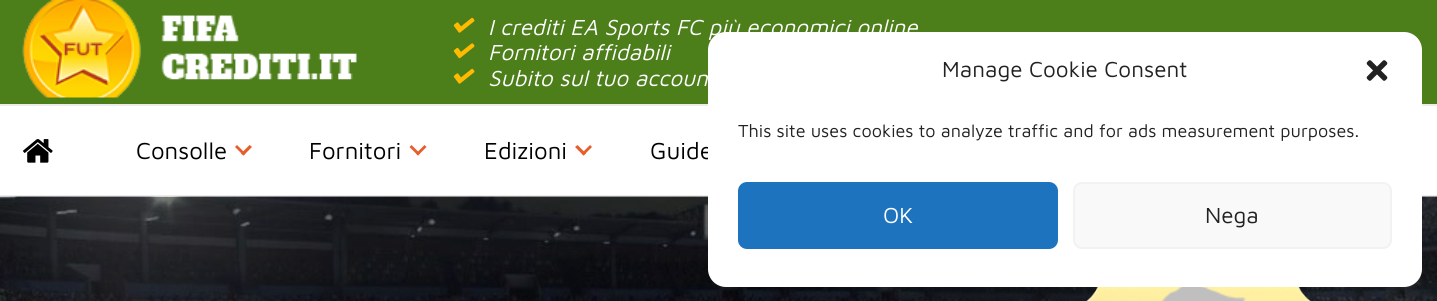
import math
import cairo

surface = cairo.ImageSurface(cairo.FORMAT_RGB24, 1437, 301)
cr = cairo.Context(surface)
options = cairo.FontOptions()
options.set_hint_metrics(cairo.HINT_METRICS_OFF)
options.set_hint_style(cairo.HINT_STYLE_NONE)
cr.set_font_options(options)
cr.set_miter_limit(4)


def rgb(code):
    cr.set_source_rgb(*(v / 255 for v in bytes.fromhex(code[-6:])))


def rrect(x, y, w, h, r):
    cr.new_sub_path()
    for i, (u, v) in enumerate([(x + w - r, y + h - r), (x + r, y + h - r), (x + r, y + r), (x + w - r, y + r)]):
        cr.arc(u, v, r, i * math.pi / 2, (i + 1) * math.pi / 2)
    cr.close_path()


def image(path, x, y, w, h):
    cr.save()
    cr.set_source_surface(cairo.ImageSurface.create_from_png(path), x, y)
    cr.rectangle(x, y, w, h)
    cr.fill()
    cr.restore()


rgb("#ffffff")
cr.paint()
rgb("#4c7e1a")
cr.rectangle(0, 0, 1437, 104)
cr.fill()
image("img/1.png", 22, 0, 335, 98)
image("img/2.png", 453, 17, 22, 16)
image("img/3.png", 453, 43, 22, 16)
image("img/2.png", 453, 68, 22, 16)
rgb("#edebeb")
cr.rectangle(0, 104, 1437, 2)
cr.fill()
cr.rectangle(0, 195, 1437, 2)
cr.fill()
image("img/4.png", 23, 139, 30, 24)
rgb("#e85d2c")
cr.new_path()
cr.move_to(249.5, 145)
cr.line_to(252, 147)
cr.line_to(243.5, 155.5)
cr.line_to(241, 153.5)
cr.close_path()
cr.fill()
cr.new_path()
cr.move_to(237, 145)
cr.line_to(245.5, 153.5)
cr.line_to(243.5, 155.5)
cr.line_to(235, 147)
cr.close_path()
cr.fill()
cr.new_path()
cr.move_to(424.5, 145)
cr.line_to(426.5, 147)
cr.line_to(418, 155.5)
cr.line_to(416, 153.5)
cr.close_path()
cr.fill()
cr.new_path()
cr.move_to(411.5, 145)
cr.line_to(420, 153.5)
cr.line_to(418, 155.5)
cr.line_to(409.5, 147)
cr.close_path()
cr.fill()
cr.new_path()
cr.move_to(590, 145)
cr.line_to(592, 147)
cr.line_to(583.5, 155.5)
cr.line_to(581.5, 153.5)
cr.close_path()
cr.fill()
cr.new_path()
cr.move_to(577.5, 145)
cr.line_to(586, 153.5)
cr.line_to(583.5, 155.5)
cr.line_to(575, 147)
cr.close_path()
cr.fill()
image("img/6.png", 0, 196, 1437, 105)
image("img/7.png", 1086, 287, 225, 14)
image("img/8.png", 1161, 287, 85, 14)
cr.select_font_face("Maven Pro", cairo.FONT_SLANT_ITALIC)
cr.set_font_size(22.5)
rgb("#ffffff")
for x, y, s in [
    (488, 35, "I crediti EA Sports FC più economici online"),
    (488, 60, "Fornitori affidabili"),
    (488, 86, "Subito sul tuo accoun"),
]:
    cr.move_to(x, y)
    cr.show_text(s)
cr.select_font_face("Maven Pro")
cr.set_font_size(24)
rgb("#000000")
for x, y, s in [
    (136, 159, "Consolle"),
    (309, 159, "Fornitori"),
    (484, 159, "Edizioni"),
    (650, 159, "Guide"),
]:
    cr.move_to(x, y)
    cr.show_text(s)
rgb("#ffffff")
rrect(708, 32, 714, 255, 18)
cr.fill()
cr.set_font_size(22.5)
rgb("#222222")
cr.move_to(942, 77)
cr.show_text("Manage Cookie Consent")
image("img/5.png", 1366, 60, 22, 21)
cr.set_font_size(18)
cr.move_to(738, 137)
cr.show_text("This site uses cookies to analyze traffic and for ads measurement purposes.")
rgb("#1e73be")
rrect(739, 183, 318, 65, 8)
cr.fill_preserve()
cr.stroke()
cr.set_font_size(22.5)
rgb("#ffffff")
cr.move_to(883, 223)
cr.show_text("OK")
rgb("#f9f9f9")
rrect(1074, 183, 317, 65, 8)
cr.fill_preserve()
rgb("#f2f2f2")
cr.stroke()
rgb("#222222")
cr.move_to(1205, 223)
cr.show_text("Nega")
surface.write_to_png("page.png")
